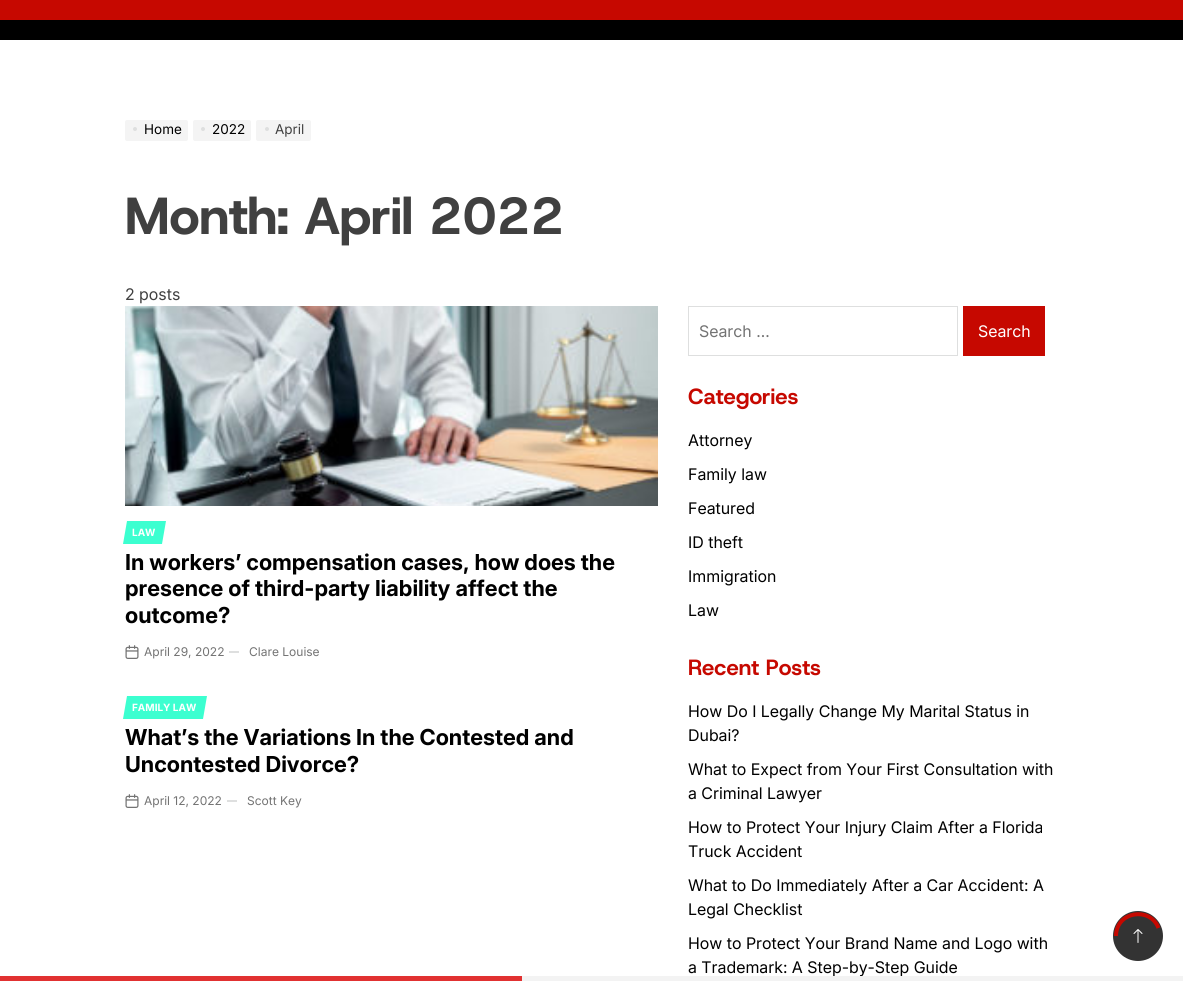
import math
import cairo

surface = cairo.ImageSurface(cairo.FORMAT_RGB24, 1183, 981)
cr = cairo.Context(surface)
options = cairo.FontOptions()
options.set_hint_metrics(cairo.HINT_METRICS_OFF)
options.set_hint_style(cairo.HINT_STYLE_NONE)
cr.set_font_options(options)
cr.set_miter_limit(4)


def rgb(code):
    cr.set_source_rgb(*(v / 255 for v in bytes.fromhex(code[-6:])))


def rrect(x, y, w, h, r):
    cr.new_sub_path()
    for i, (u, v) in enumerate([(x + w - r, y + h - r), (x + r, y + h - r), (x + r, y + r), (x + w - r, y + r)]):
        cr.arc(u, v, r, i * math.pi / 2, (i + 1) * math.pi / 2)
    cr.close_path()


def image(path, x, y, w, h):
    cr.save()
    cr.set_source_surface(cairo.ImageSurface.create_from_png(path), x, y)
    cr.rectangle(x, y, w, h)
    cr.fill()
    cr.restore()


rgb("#ffffff")
cr.paint()
rgb("#c60800")
cr.rectangle(0, 0, 1183, 20)
cr.fill()
rgb("#000000")
cr.rectangle(0, 20, 1183, 20)
cr.fill()
rgb("#f4f4f4")
rrect(125, 120, 63, 21, 2)
cr.fill()
rgb("#dedfdf")
cr.arc(135, 129, 2, 0, 2 * math.pi)
cr.fill()
rgb("#f4f4f4")
rrect(193, 120, 58, 21, 2)
cr.fill()
rgb("#dedfdf")
cr.arc(203, 129, 2, 0, 2 * math.pi)
cr.fill()
rgb("#f4f4f4")
rrect(256, 120, 55, 21, 2)
cr.fill()
rgb("#dedfdf")
cr.arc(267, 129, 2, 0, 2 * math.pi)
cr.fill()
image("img/1.png", 125, 306, 533, 200)
rgb("#3cffd0")
cr.new_path()
cr.move_to(127, 521)
cr.line_to(166, 521)
cr.line_to(162, 544)
cr.line_to(123, 544)
cr.close_path()
cr.fill()
image("img/2.png", 125, 645, 14, 14)
rgb("#dedfdf")
cr.rectangle(229, 651, 10, 2)
cr.fill()
rgb("#3cffd0")
cr.new_path()
cr.move_to(127, 696)
cr.line_to(207, 696)
cr.line_to(203, 719)
cr.line_to(123, 719)
cr.close_path()
cr.fill()
image("img/2.png", 125, 794, 14, 14)
rgb("#dedfdf")
cr.rectangle(227, 800, 10, 2)
cr.fill()
cr.rectangle(688.5, 306.5, 269, 49)
cr.set_line_width(1)
cr.stroke()
rgb("#c60800")
cr.rectangle(963, 306, 82, 50)
cr.fill()
rgb("#333333")
cr.arc(1138, 936, 25, 0, 2 * math.pi)
cr.fill()
image("img/3.png", 1133, 929, 10, 14)
cr.new_path()
cr.move_to(1116, 936)
cr.curve_to(1116, 911.5, 1150, 906, 1158.5, 928)
rgb("#c60800")
cr.set_line_width(4)
cr.stroke()
rgb("#e13131")
cr.rectangle(0, 976, 522, 5)
cr.fill()
cr.select_font_face("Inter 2")
cr.set_font_size(13.5)
rgb("#000000")
cr.move_to(144, 134)
cr.show_text("Home")
cr.move_to(212, 134)
cr.show_text("2022")
rgb("#404040")
cr.move_to(275, 134)
cr.show_text("April")
cr.select_font_face("Host Grotesk ExtraBold")
cr.set_font_size(52)
cr.move_to(125, 234)
cr.show_text("Month: April 2022")
cr.select_font_face("Inter")
cr.set_font_size(16)
cr.move_to(125, 300)
cr.show_text("2 posts")
cr.select_font_face("Inter 2", cairo.FONT_SLANT_NORMAL, cairo.FONT_WEIGHT_BOLD)
cr.set_font_size(10)
rgb("#ffffff")
cr.move_to(132, 536)
cr.show_text("LAW")
cr.select_font_face("Inter", cairo.FONT_SLANT_NORMAL, cairo.FONT_WEIGHT_BOLD)
cr.set_font_size(22)
rgb("#000000")
for x, y, s in [
    (125, 570, "In workers’ compensation cases, how does the"),
    (125, 596, "presence of third-party liability affect the"),
    (125, 623, "outcome?"),
]:
    cr.move_to(x, y)
    cr.show_text(s)
cr.select_font_face("Inter 2")
cr.set_font_size(12)
rgb("#737373")
cr.move_to(144, 656)
cr.show_text("April 29, 2022")
cr.move_to(249, 656)
cr.show_text("Clare Louise")
cr.select_font_face("Inter 2", cairo.FONT_SLANT_NORMAL, cairo.FONT_WEIGHT_BOLD)
cr.set_font_size(10)
rgb("#ffffff")
cr.move_to(132, 711)
cr.show_text("FAMILY LAW")
cr.select_font_face("Inter", cairo.FONT_SLANT_NORMAL, cairo.FONT_WEIGHT_BOLD)
cr.set_font_size(22)
rgb("#000000")
cr.move_to(125, 745)
cr.show_text("What’s the Variations In the Contested and")
cr.move_to(125, 772)
cr.show_text("Uncontested Divorce?")
cr.select_font_face("Inter 2")
cr.set_font_size(12)
rgb("#737373")
cr.move_to(144, 805)
cr.show_text("April 12, 2022")
cr.move_to(247, 805)
cr.show_text("Scott Key")
cr.select_font_face("Inter")
cr.set_font_size(16)
cr.move_to(699, 337)
cr.show_text("Search …")
rgb("#ffffff")
cr.move_to(978, 337)
cr.show_text("Search")
cr.select_font_face("Host Grotesk", cairo.FONT_SLANT_NORMAL, cairo.FONT_WEIGHT_BOLD)
cr.set_font_size(22)
rgb("#c60800")
cr.move_to(688, 404)
cr.show_text("Categories")
cr.select_font_face("Inter")
cr.set_font_size(16)
rgb("#000000")
for x, y, s in [
    (688, 446, "Attorney"),
    (688, 480, "Family law"),
    (688, 514, "Featured"),
    (688, 548, "ID theft"),
    (688, 582, "Immigration"),
    (688, 616, "Law"),
]:
    cr.move_to(x, y)
    cr.show_text(s)
cr.select_font_face("Host Grotesk", cairo.FONT_SLANT_NORMAL, cairo.FONT_WEIGHT_BOLD)
cr.set_font_size(22)
rgb("#c60800")
cr.move_to(688, 675)
cr.show_text("Recent Posts")
cr.select_font_face("Inter")
cr.set_font_size(16)
rgb("#000000")
for x, y, s in [
    (688, 717, "How Do I Legally Change My Marital Status in"),
    (688, 741, "Dubai?"),
    (688, 775, "What to Expect from Your First Consultation with"),
    (688, 799, "a Criminal Lawyer"),
    (688, 833, "How to Protect Your Injury Claim After a Florida"),
    (688, 857, "Truck Accident"),
    (688, 891, "What to Do Immediately After a Car Accident: A"),
    (688, 915, "Legal Checklist"),
    (688, 949, "How to Protect Your Brand Name and Logo with"),
    (688, 973, "a Trademark: A Step-by-Step Guide"),
]:
    cr.move_to(x, y)
    cr.show_text(s)
rgb("#f3f3f3")
cr.rectangle(522, 976, 661, 5)
cr.fill()
surface.write_to_png("page.png")
